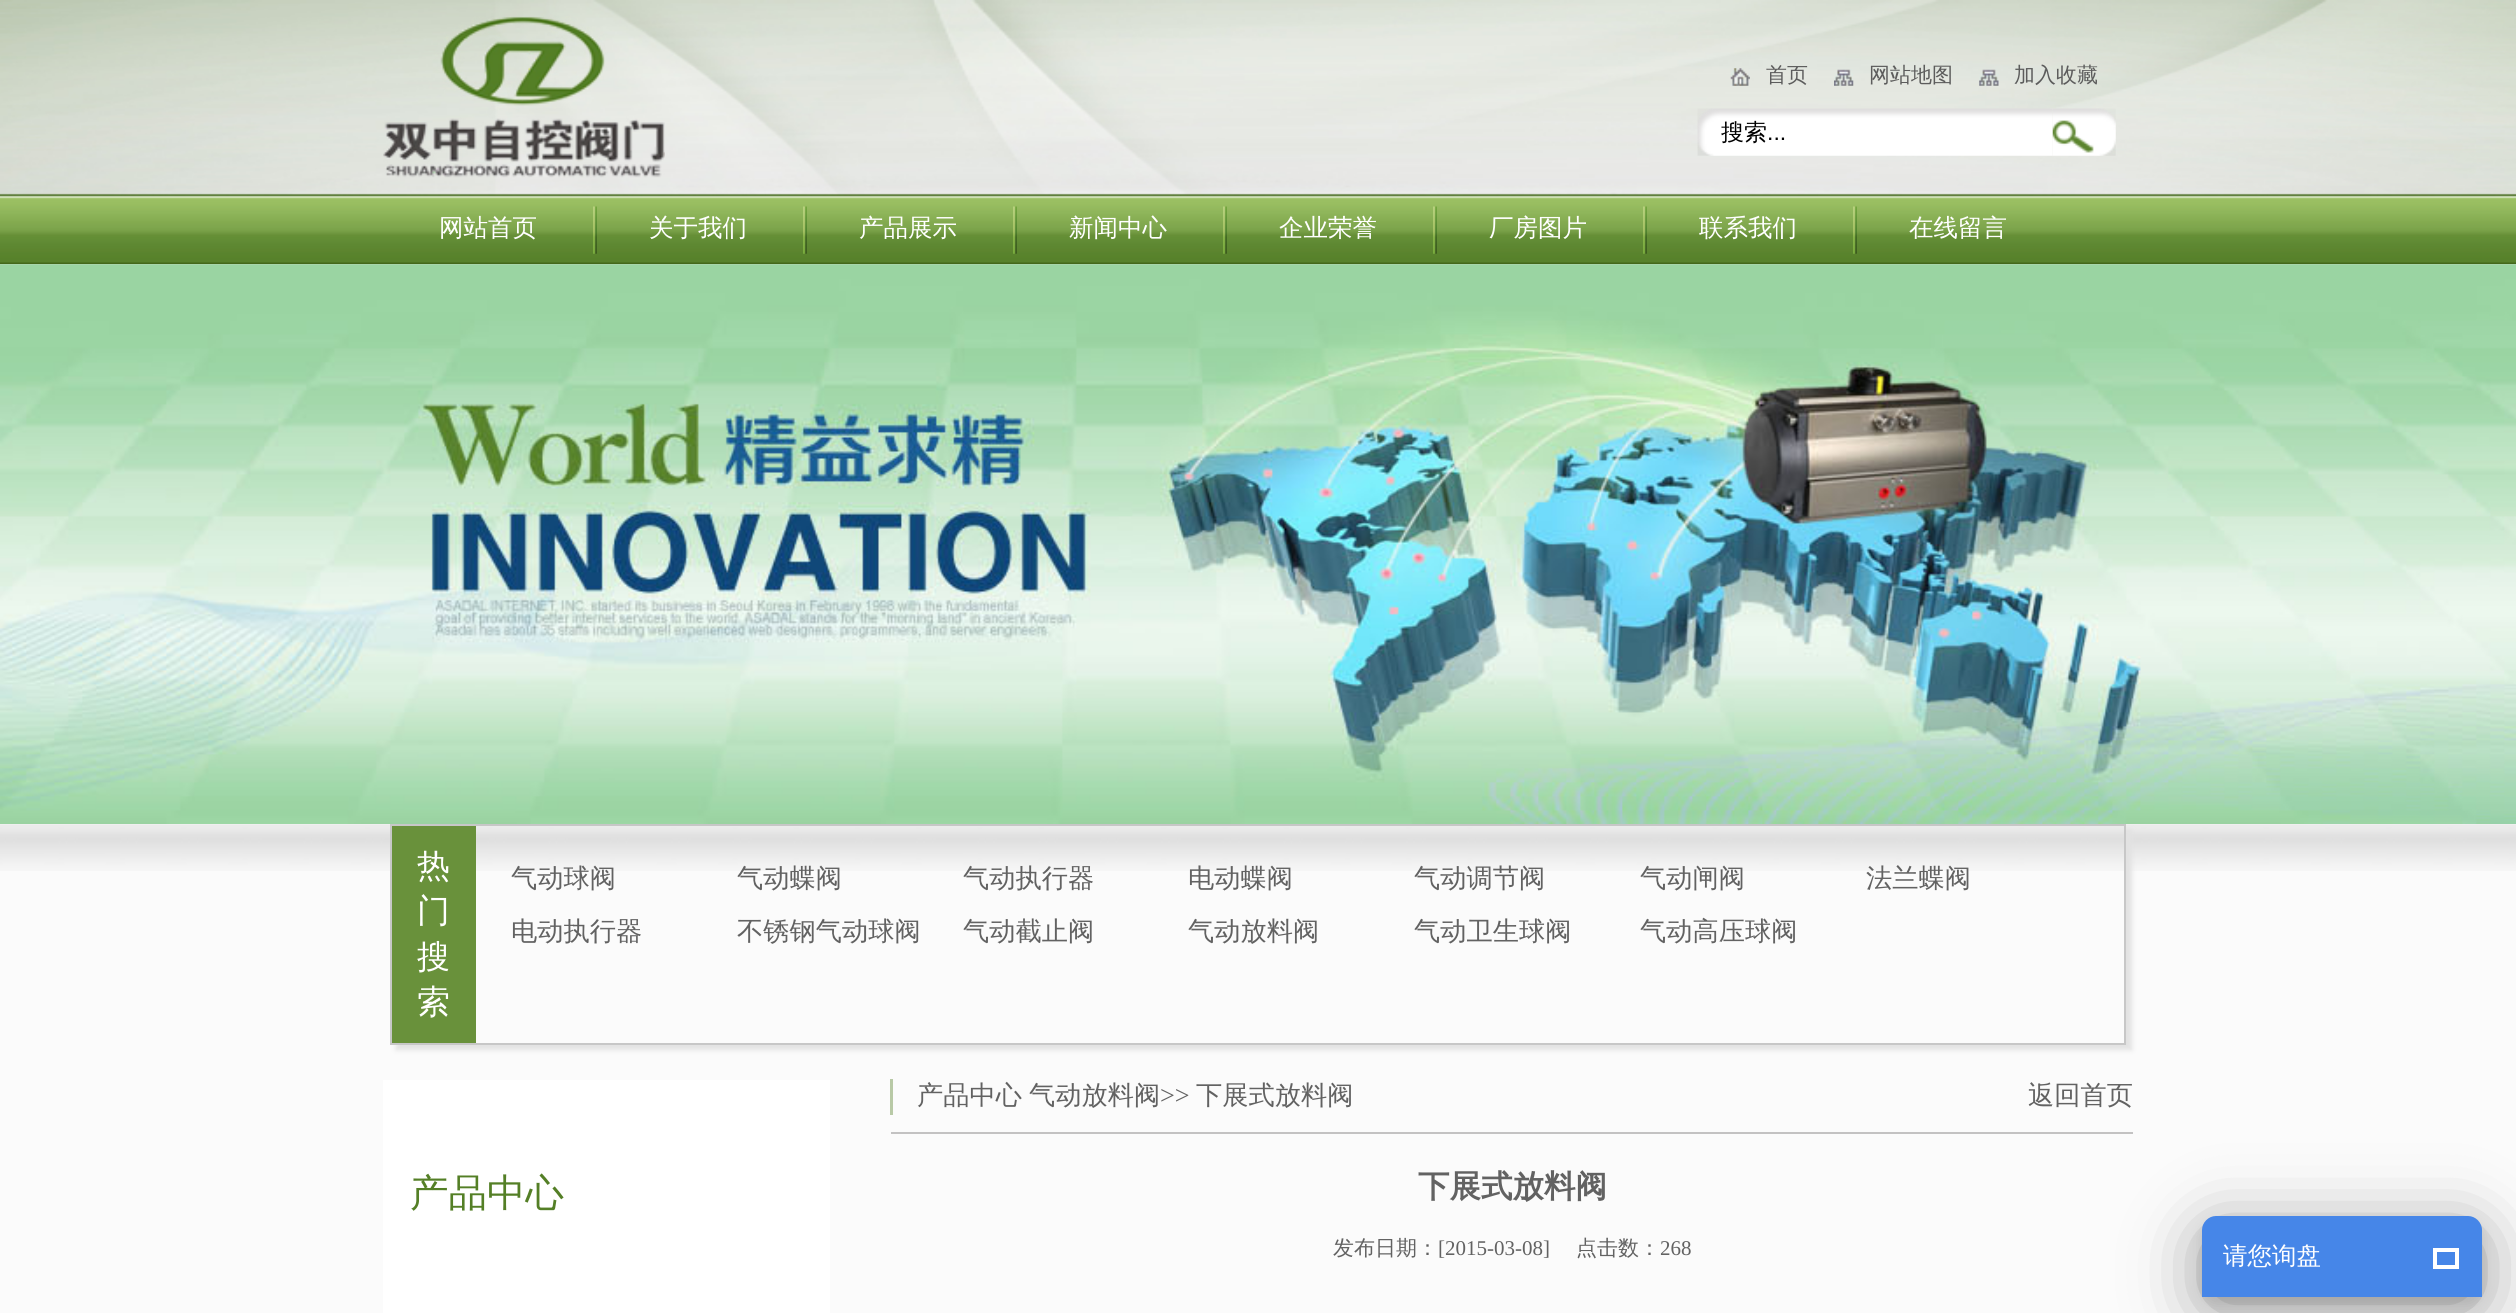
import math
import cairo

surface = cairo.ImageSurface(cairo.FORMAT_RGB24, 2516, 1313)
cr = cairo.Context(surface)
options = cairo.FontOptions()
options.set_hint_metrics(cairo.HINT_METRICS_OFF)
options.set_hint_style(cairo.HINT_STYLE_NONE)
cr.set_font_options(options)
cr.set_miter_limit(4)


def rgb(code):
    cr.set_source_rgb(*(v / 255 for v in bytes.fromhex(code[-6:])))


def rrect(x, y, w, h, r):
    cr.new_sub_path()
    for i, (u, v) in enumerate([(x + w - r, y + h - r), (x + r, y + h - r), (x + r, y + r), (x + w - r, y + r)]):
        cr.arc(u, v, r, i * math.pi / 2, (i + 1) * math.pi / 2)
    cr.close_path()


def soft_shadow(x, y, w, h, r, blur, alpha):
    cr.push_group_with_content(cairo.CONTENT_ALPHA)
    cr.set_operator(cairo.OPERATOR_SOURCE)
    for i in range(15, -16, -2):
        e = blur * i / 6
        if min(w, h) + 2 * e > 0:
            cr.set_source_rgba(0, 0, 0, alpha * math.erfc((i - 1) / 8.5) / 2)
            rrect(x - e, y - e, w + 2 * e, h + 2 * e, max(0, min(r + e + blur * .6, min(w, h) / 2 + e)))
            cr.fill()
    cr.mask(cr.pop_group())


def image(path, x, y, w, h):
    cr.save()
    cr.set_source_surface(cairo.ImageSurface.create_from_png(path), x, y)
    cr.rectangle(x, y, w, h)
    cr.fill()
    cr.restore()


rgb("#ffffff")
cr.paint()
image("img/1.png", 0, 0, 2516, 265)
image("img/2.png", 383, 16, 282, 162)
image("img/3.png", 1730, 68, 20, 18)
image("img/4.png", 1834, 69, 20, 17)
image("img/5.png", 1979, 69, 20, 17)
image("img/6.png", 1697, 108, 356, 48)
image("img/7.png", 2052, 108, 64, 48)
image("img/8.png", 593, 206, 4, 48)
image("img/8.png", 803, 206, 4, 48)
image("img/8.png", 1013, 206, 4, 48)
image("img/8.png", 1223, 206, 4, 48)
image("img/8.png", 1433, 206, 4, 48)
image("img/8.png", 1643, 206, 4, 48)
image("img/8.png", 1853, 206, 4, 48)
image("img/9.png", 0, 264, 2516, 560)
rgb("#fbfbfb")
cr.rectangle(0, 824, 2516, 489)
cr.fill()
image("img/10.png", 0, 824, 2516, 47)
cr.save()
cr.set_fill_rule(cairo.FILL_RULE_EVEN_ODD)
cr.new_path()
cr.move_to(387, 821)
cr.line_to(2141, 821)
cr.line_to(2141, 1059)
cr.line_to(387, 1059)
cr.close_path()
cr.move_to(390, 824)
cr.line_to(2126, 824)
cr.line_to(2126, 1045)
cr.line_to(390, 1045)
cr.close_path()
cr.clip()
rgb("#e2e2e2")
soft_shadow(396, 830, 1736, 220, 0, 2.5, 1)
cr.restore()
cr.rectangle(391, 825, 1734, 219)
rgb("#c7c7c7")
cr.stroke()
for x, y, w, h, color in [
    (392, 826, 84, 217, "#69913b"),
    (383, 1080, 447, 233, "#ffffff"),
    (890, 1079, 3, 36, "#b8c9a6"),
    (891, 1132, 1242, 2, "#c3c2c2"),
]:
    rgb(color)
    cr.rectangle(x, y, w, h)
    cr.fill()
rgb("#000000")
soft_shadow(2202, 1230, 280, 81, 14, 35, 0.4)
soft_shadow(2202, 1223, 280, 81, 14, 7, 0.12)
rgb("#4686e8")
cr.new_path()
cr.move_to(2216, 1216)
cr.line_to(2468, 1216)
cr.curve_to(2475.5, 1216, 2482, 1222.5, 2482, 1230)
cr.line_to(2482, 1297)
cr.line_to(2202, 1297)
cr.line_to(2202, 1230)
cr.curve_to(2202, 1222.5, 2208.5, 1216, 2216, 1216)
cr.close_path()
cr.fill()
cr.rectangle(2435, 1250, 22, 17)
rgb("#ffffff")
cr.set_line_width(4)
cr.stroke()
cr.select_font_face("WenQuanYi Zen Hei Medium")
cr.set_font_size(21)
rgb("#5c5c5c")
for x, y, s in [
    (1766, 82, "首页"),
    (1869, 82, "网站地图"),
    (2014, 82, "加入收藏"),
]:
    cr.move_to(x, y)
    cr.show_text(s)
cr.set_font_size(23)
rgb("#000000")
cr.move_to(1721, 140)
cr.show_text("搜索")
cr.select_font_face("Liberation Sans")
cr.move_to(1767, 140)
cr.show_text("...")
cr.select_font_face("WenQuanYi Zen Hei Medium")
cr.set_font_size(24.5)
rgb("#ffffff")
for x, y, s in [
    (439, 236, "网站首页"),
    (649, 236, "关于我们"),
    (859, 236, "产品展示"),
    (1069, 236, "新闻中心"),
    (1279, 236, "企业荣誉"),
    (1489, 236, "厂房图片"),
    (1699, 236, "联系我们"),
    (1909, 236, "在线留言"),
]:
    cr.move_to(x, y)
    cr.show_text(s)
cr.set_font_size(33)
for x, y, s in [
    (417, 877, "热"),
    (417, 922, "门"),
    (417, 968, "搜"),
    (417, 1013, "索"),
]:
    cr.move_to(x, y)
    cr.show_text(s)
cr.set_font_size(26.25)
rgb("#626262")
for x, y, s in [
    (511, 887, "气动球阀"),
    (737, 887, "气动蝶阀"),
    (963, 887, "气动执行器"),
    (1188, 887, "电动蝶阀"),
    (1414, 887, "气动调节阀"),
    (1640, 887, "气动闸阀"),
    (1866, 887, "法兰蝶阀"),
    (511, 940, "电动执行器"),
    (737, 940, "不锈钢气动球阀"),
    (963, 940, "气动截止阀"),
    (1188, 940, "气动放料阀"),
    (1414, 940, "气动卫生球阀"),
    (1640, 940, "气动高压球阀"),
]:
    cr.move_to(x, y)
    cr.show_text(s)
cr.set_font_size(38.5)
rgb("#547f26")
cr.move_to(410, 1206)
cr.show_text("产品中心")
cr.set_font_size(26.25)
rgb("#626262")
cr.move_to(917, 1104)
cr.show_text("产品中心")
cr.move_to(1029, 1104)
cr.show_text("气动放料阀")
cr.select_font_face("Liberation Serif")
cr.move_to(1160, 1104)
cr.show_text(">>")
cr.select_font_face("WenQuanYi Zen Hei Medium")
cr.move_to(1196, 1104)
cr.show_text("下展式放料阀")
cr.move_to(2028, 1104)
cr.show_text("返回首页")
cr.select_font_face("WenQuanYi Zen Hei", cairo.FONT_SLANT_NORMAL, cairo.FONT_WEIGHT_BOLD)
cr.set_font_size(31.5)
cr.move_to(1418, 1197)
cr.show_text("下展式放料阀")
cr.select_font_face("WenQuanYi Zen Hei Medium")
cr.set_font_size(21)
cr.move_to(1333, 1255)
cr.show_text("发布日期：")
cr.select_font_face("Liberation Serif")
cr.move_to(1438, 1255)
cr.show_text("[2015-03-08]")
cr.select_font_face("WenQuanYi Zen Hei Medium")
cr.move_to(1576, 1255)
cr.show_text("点击数：")
cr.select_font_face("Liberation Serif")
cr.move_to(1660, 1255)
cr.show_text("268")
cr.select_font_face("WenQuanYi Zen Hei Medium")
cr.set_font_size(24.5)
rgb("#ffffff")
cr.move_to(2223, 1264)
cr.show_text("请您询盘")
surface.write_to_png("page.png")
